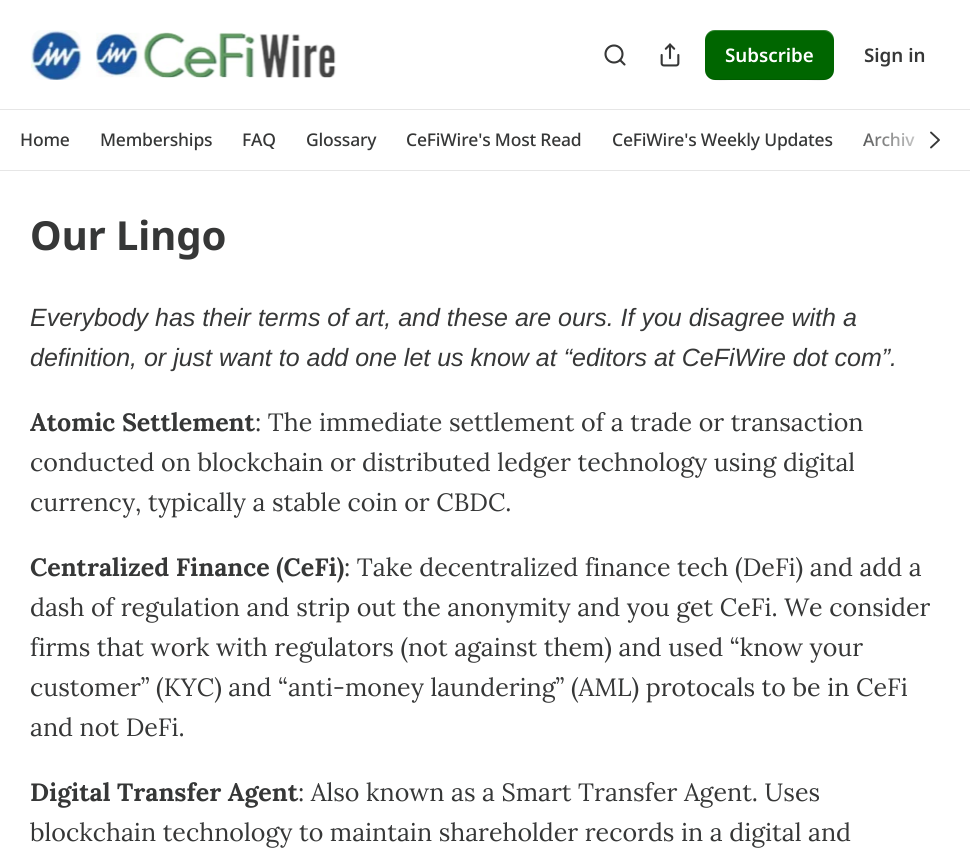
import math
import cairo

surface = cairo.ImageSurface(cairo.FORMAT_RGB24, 970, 851)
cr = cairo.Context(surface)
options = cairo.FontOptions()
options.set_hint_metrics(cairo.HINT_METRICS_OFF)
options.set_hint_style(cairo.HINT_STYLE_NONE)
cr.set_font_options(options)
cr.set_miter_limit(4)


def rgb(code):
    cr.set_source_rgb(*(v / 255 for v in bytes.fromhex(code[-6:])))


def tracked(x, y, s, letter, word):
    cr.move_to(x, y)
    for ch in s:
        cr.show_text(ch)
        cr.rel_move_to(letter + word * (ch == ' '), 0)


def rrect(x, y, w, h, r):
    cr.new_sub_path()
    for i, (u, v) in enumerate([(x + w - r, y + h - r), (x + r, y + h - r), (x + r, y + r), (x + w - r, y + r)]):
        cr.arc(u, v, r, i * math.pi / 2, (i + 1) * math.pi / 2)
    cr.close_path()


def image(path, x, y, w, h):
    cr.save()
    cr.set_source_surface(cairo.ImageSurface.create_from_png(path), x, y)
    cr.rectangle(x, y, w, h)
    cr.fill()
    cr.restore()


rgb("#ffffff")
cr.paint()
image("img/1.png", 31, 30, 51, 50)
image("img/2.png", 96, 32, 240, 46)
cr.arc(614, 54, 8.5, 0, 2 * math.pi)
rgb("#363737")
cr.set_line_width(2.1)
cr.stroke()
cr.new_path()
cr.move_to(624.5, 64.5)
cr.line_to(620, 60)
cr.set_line_cap(cairo.LINE_CAP_ROUND)
cr.set_line_join(cairo.LINE_JOIN_ROUND)
cr.stroke()
image("img/3.png", 660, 43, 20, 24)
rgb("#006600")
rrect(705, 30, 129, 50, 10)
cr.fill()
cr.set_source_rgba(0, 0, 0, 0.1)
cr.new_path()
cr.move_to(705, 69)
cr.curve_to(705, 84, 723, 80, 733, 80)
cr.line_to(806, 80)
cr.curve_to(816, 80, 834, 84, 834, 69)
cr.curve_to(834, 74, 829, 79, 824, 79)
cr.line_to(715, 79)
cr.curve_to(709, 79, 705, 74, 705, 69)
cr.close_path()
cr.fill()
cr.set_source_rgba(1, 1, 1, 0.2)
cr.new_path()
cr.move_to(715, 31)
cr.line_to(824, 31)
cr.curve_to(829, 31, 834, 36, 834, 41)
cr.curve_to(834, 26, 816, 30, 806, 30)
cr.line_to(733, 30)
cr.curve_to(723, 30, 705, 26, 705, 41)
cr.curve_to(705, 36, 709, 31, 715, 31)
cr.close_path()
cr.fill()
rgb("#e6e6e6")
cr.rectangle(0, 109, 970, 1)
cr.fill()
cr.rectangle(0, 170, 970, 1)
cr.fill()
cr.new_path()
cr.move_to(931, 147.5)
cr.line_to(939, 140)
cr.line_to(931, 132.5)
rgb("#363737")
cr.set_line_width(1.9)
cr.stroke()
cr.select_font_face("Noto Sans SemiBold")
cr.set_font_size(18.75)
rgb("#ffffff")
cr.move_to(725, 62)
cr.show_text("Subscribe")
rgb("#363737")
cr.move_to(864, 62)
cr.show_text("Sign in")
cr.select_font_face("Noto Sans Medium")
cr.set_font_size(17.5)
for x, y, s in [
    (20, 146, "Home"),
    (100, 146, "Memberships"),
    (242, 146, "FAQ"),
    (306, 146, "Glossary"),
    (406, 146, "CeFiWire's Most Read"),
    (612, 146, "CeFiWire's Weekly Updates"),
    (863, 146, "Archiv"),
]:
    tracked(x, y, s, -0.2, 0)
gradient = cairo.LinearGradient(970, 140, 845, 140)
gradient.add_color_stop_rgba(0.2, 1, 1, 1, 1)
gradient.add_color_stop_rgba(1, 1, 1, 1, 0)
cr.set_source(gradient)
cr.rectangle(863, 132, 52, 15)
cr.fill()
cr.select_font_face("Noto Sans", cairo.FONT_SLANT_NORMAL, cairo.FONT_WEIGHT_BOLD)
cr.set_font_size(40)
rgb("#363737")
cr.move_to(30, 250)
cr.show_text("Our Lingo")
cr.select_font_face("Liberation Sans", cairo.FONT_SLANT_ITALIC)
cr.set_font_size(25)
cr.move_to(30, 326)
cr.show_text("Everybody has their terms of art, and these are ours. If you disagree with a")
cr.move_to(30, 366)
cr.show_text("definition, or just want to add one let us know at “editors at CeFiWire dot com”.")
cr.select_font_face("Lora", cairo.FONT_SLANT_NORMAL, cairo.FONT_WEIGHT_BOLD)
cr.move_to(30, 431)
cr.show_text("Atomic Settlement")
cr.select_font_face("Lora")
for x, y, s in [
    (255, 431, ": The immediate settlement of a trade or transaction"),
    (30, 471, "conducted on blockchain or distributed ledger technology using digital"),
    (30, 511, "currency, typically a stable coin or CBDC."),
]:
    cr.move_to(x, y)
    cr.show_text(s)
cr.select_font_face("Lora", cairo.FONT_SLANT_NORMAL, cairo.FONT_WEIGHT_BOLD)
cr.move_to(30, 576)
cr.show_text("Centralized Finance (CeFi)")
cr.select_font_face("Lora")
for x, y, s in [
    (344, 576, ": Take decentralized finance tech (DeFi) and add a"),
    (30, 616, "dash of regulation and strip out the anonymity and you get CeFi. We consider"),
    (30, 656, "firms that work with regulators (not against them) and used “know your"),
    (30, 696, "customer” (KYC) and “anti-money laundering” (AML) protocals to be in CeFi"),
    (30, 736, "and not DeFi."),
]:
    cr.move_to(x, y)
    cr.show_text(s)
cr.select_font_face("Lora", cairo.FONT_SLANT_NORMAL, cairo.FONT_WEIGHT_BOLD)
cr.move_to(30, 801)
cr.show_text("Digital Transfer Agent")
cr.select_font_face("Lora")
cr.move_to(298, 801)
cr.show_text(": Also known as a Smart Transfer Agent. Uses")
cr.move_to(30, 841)
cr.show_text("blockchain technology to maintain shareholder records in a digital and")
surface.write_to_png("page.png")
